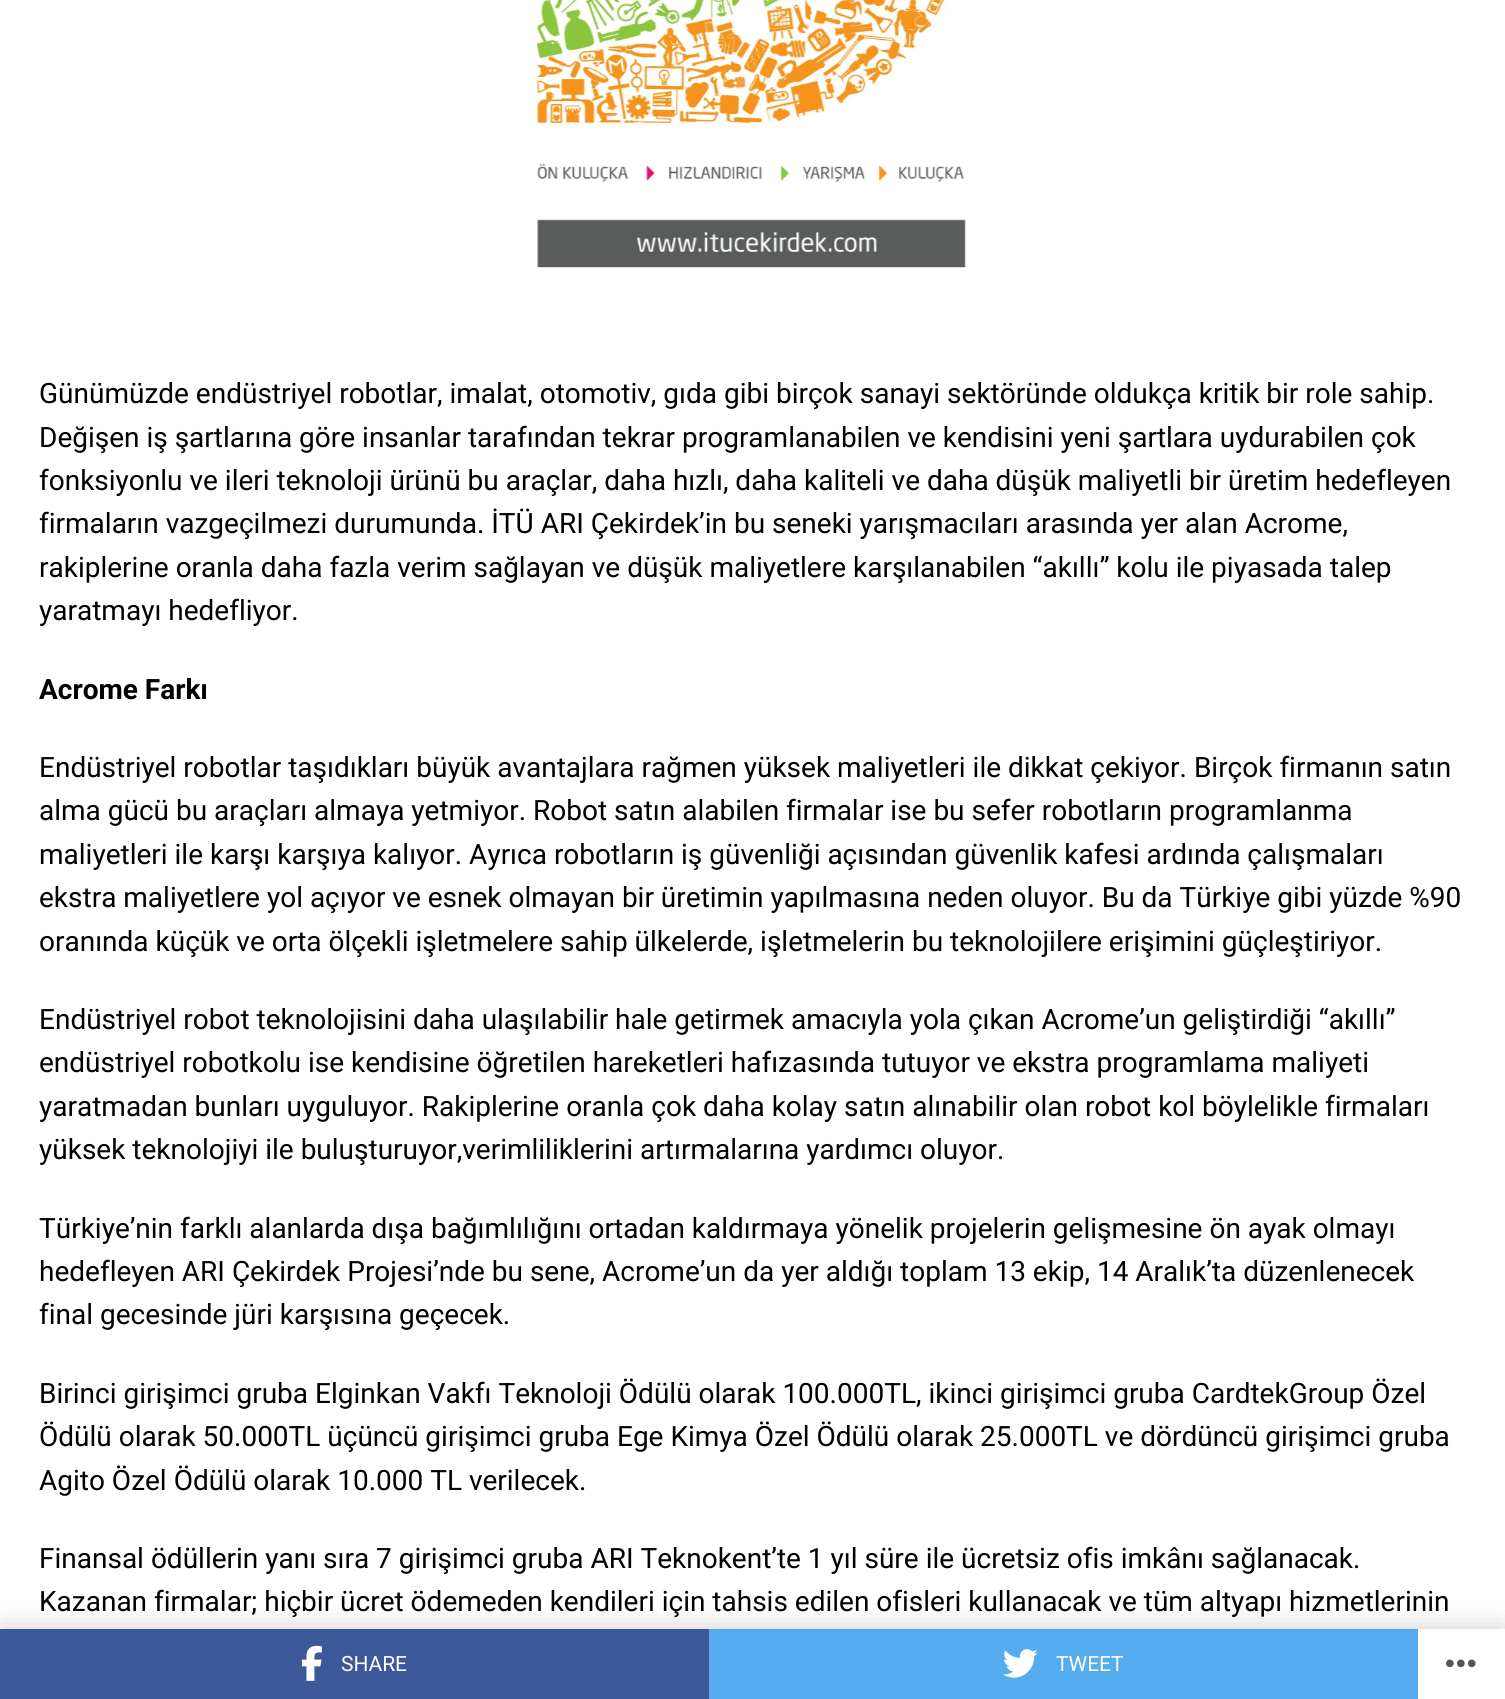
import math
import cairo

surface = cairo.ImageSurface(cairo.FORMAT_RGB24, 1505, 1699)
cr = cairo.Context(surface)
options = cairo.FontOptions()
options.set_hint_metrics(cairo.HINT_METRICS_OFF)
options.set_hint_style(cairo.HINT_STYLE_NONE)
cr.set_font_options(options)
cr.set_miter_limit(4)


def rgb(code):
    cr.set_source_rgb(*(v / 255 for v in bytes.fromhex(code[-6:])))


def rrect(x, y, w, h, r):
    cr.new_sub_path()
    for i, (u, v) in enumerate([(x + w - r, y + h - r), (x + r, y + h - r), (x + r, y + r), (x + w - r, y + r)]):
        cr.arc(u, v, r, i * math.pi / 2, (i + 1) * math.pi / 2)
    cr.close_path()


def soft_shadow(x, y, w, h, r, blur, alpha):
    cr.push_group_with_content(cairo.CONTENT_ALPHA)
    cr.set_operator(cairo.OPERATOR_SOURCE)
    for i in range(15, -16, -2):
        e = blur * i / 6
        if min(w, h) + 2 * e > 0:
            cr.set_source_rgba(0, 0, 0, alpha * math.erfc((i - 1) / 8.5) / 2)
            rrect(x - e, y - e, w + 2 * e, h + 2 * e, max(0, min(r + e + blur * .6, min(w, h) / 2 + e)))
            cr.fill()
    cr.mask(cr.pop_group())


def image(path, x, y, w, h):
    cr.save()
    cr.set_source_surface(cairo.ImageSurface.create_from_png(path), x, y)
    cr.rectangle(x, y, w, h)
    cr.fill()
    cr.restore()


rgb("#ffffff")
cr.paint()
image("img/1.png", 535, 0, 431, 268)
rgb("#000000")
soft_shadow(0, 1629, 1505, 70, 0, 14, 0.2)
rgb("#ffffff")
cr.rectangle(1418, 1629, 87, 70)
cr.fill()
rgb("#3b5998")
cr.rectangle(0, 1629, 709, 70)
cr.fill()
image("img/2.png", 301, 1645, 21, 36)
rgb("#55acee")
cr.rectangle(709, 1629, 709, 70)
cr.fill()
image("img/3.png", 1003, 1649, 35, 29)
image("img/4.png", 1446, 1659, 30, 9)
cr.select_font_face("Roboto")
cr.set_font_size(28)
rgb("#000000")
for x, y, s in [
    (39, 403, "Günümüzde endüstriyel robotlar, imalat, otomotiv, gıda gibi birçok sanayi sektöründe oldukça kritik bir role sahip."),
    (39, 447, "Değişen iş şartlarına göre insanlar tarafından tekrar programlanabilen ve kendisini yeni şartlara uydurabilen çok"),
    (39, 490, "fonksiyonlu ve ileri teknoloji ürünü bu araçlar, daha hızlı, daha kaliteli ve daha düşük maliyetli bir üretim hedefleyen"),
    (39, 533, "firmaların vazgeçilmezi durumunda. İTÜ ARI Çekirdek’in bu seneki yarışmacıları arasında yer alan Acrome,"),
    (39, 577, "rakiplerine oranla daha fazla verim sağlayan ve düşük maliyetlere karşılanabilen “akıllı” kolu ile piyasada talep"),
    (39, 620, "yaratmayı hedefliyor."),
]:
    cr.move_to(x, y)
    cr.show_text(s)
cr.select_font_face("Roboto", cairo.FONT_SLANT_NORMAL, cairo.FONT_WEIGHT_BOLD)
cr.move_to(39, 699)
cr.show_text("Acrome Farkı")
cr.select_font_face("Roboto")
for x, y, s in [
    (39, 777, "Endüstriyel robotlar taşıdıkları büyük avantajlara rağmen yüksek maliyetleri ile dikkat çekiyor. Birçok firmanın satın"),
    (39, 820, "alma gücü bu araçları almaya yetmiyor. Robot satın alabilen firmalar ise bu sefer robotların programlanma"),
    (39, 864, "maliyetleri ile karşı karşıya kalıyor. Ayrıca robotların iş güvenliği açısından güvenlik kafesi ardında çalışmaları"),
    (39, 907, "ekstra maliyetlere yol açıyor ve esnek olmayan bir üretimin yapılmasına neden oluyor. Bu da Türkiye gibi yüzde %90"),
    (39, 951, "oranında küçük ve orta ölçekli işletmelere sahip ülkelerde, işletmelerin bu teknolojilere erişimini güçleştiriyor."),
    (39, 1029, "Endüstriyel robot teknolojisini daha ulaşılabilir hale getirmek amacıyla yola çıkan Acrome’un geliştirdiği “akıllı”"),
    (39, 1072, "endüstriyel robotkolu ise kendisine öğretilen hareketleri hafızasında tutuyor ve ekstra programlama maliyeti"),
    (39, 1116, "yaratmadan bunları uyguluyor. Rakiplerine oranla çok daha kolay satın alınabilir olan robot kol böylelikle firmaları"),
    (39, 1159, "yüksek teknolojiyi ile buluşturuyor,verimliliklerini artırmalarına yardımcı oluyor."),
    (39, 1238, "Türkiye’nin farklı alanlarda dışa bağımlılığını ortadan kaldırmaya yönelik projelerin gelişmesine ön ayak olmayı"),
    (39, 1281, "hedefleyen ARI Çekirdek Projesi’nde bu sene, Acrome’un da yer aldığı toplam 13 ekip, 14 Aralık’ta düzenlenecek"),
    (39, 1324, "final gecesinde jüri karşısına geçecek."),
    (39, 1403, "Birinci girişimci gruba Elginkan Vakfı Teknoloji Ödülü olarak 100.000TL, ikinci girişimci gruba CardtekGroup Özel"),
    (39, 1446, "Ödülü olarak 50.000TL üçüncü girişimci gruba Ege Kimya Özel Ödülü olarak 25.000TL ve dördüncü girişimci gruba"),
    (39, 1490, "Agito Özel Ödülü olarak 10.000 TL verilecek."),
    (39, 1568, "Finansal ödüllerin yanı sıra 7 girişimci gruba ARI Teknokent’te 1 yıl süre ile ücretsiz ofis imkânı sağlanacak."),
    (39, 1611, "Kazanan firmalar; hiçbir ücret ödemeden kendileri için tahsis edilen ofisleri kullanacak ve tüm altyapı hizmetlerinin"),
]:
    cr.move_to(x, y)
    cr.show_text(s)
cr.set_font_size(21)
rgb("#ffffff")
cr.move_to(341, 1671)
cr.show_text("SHARE")
cr.move_to(1056, 1671)
cr.show_text("TWEET")
surface.write_to_png("page.png")
